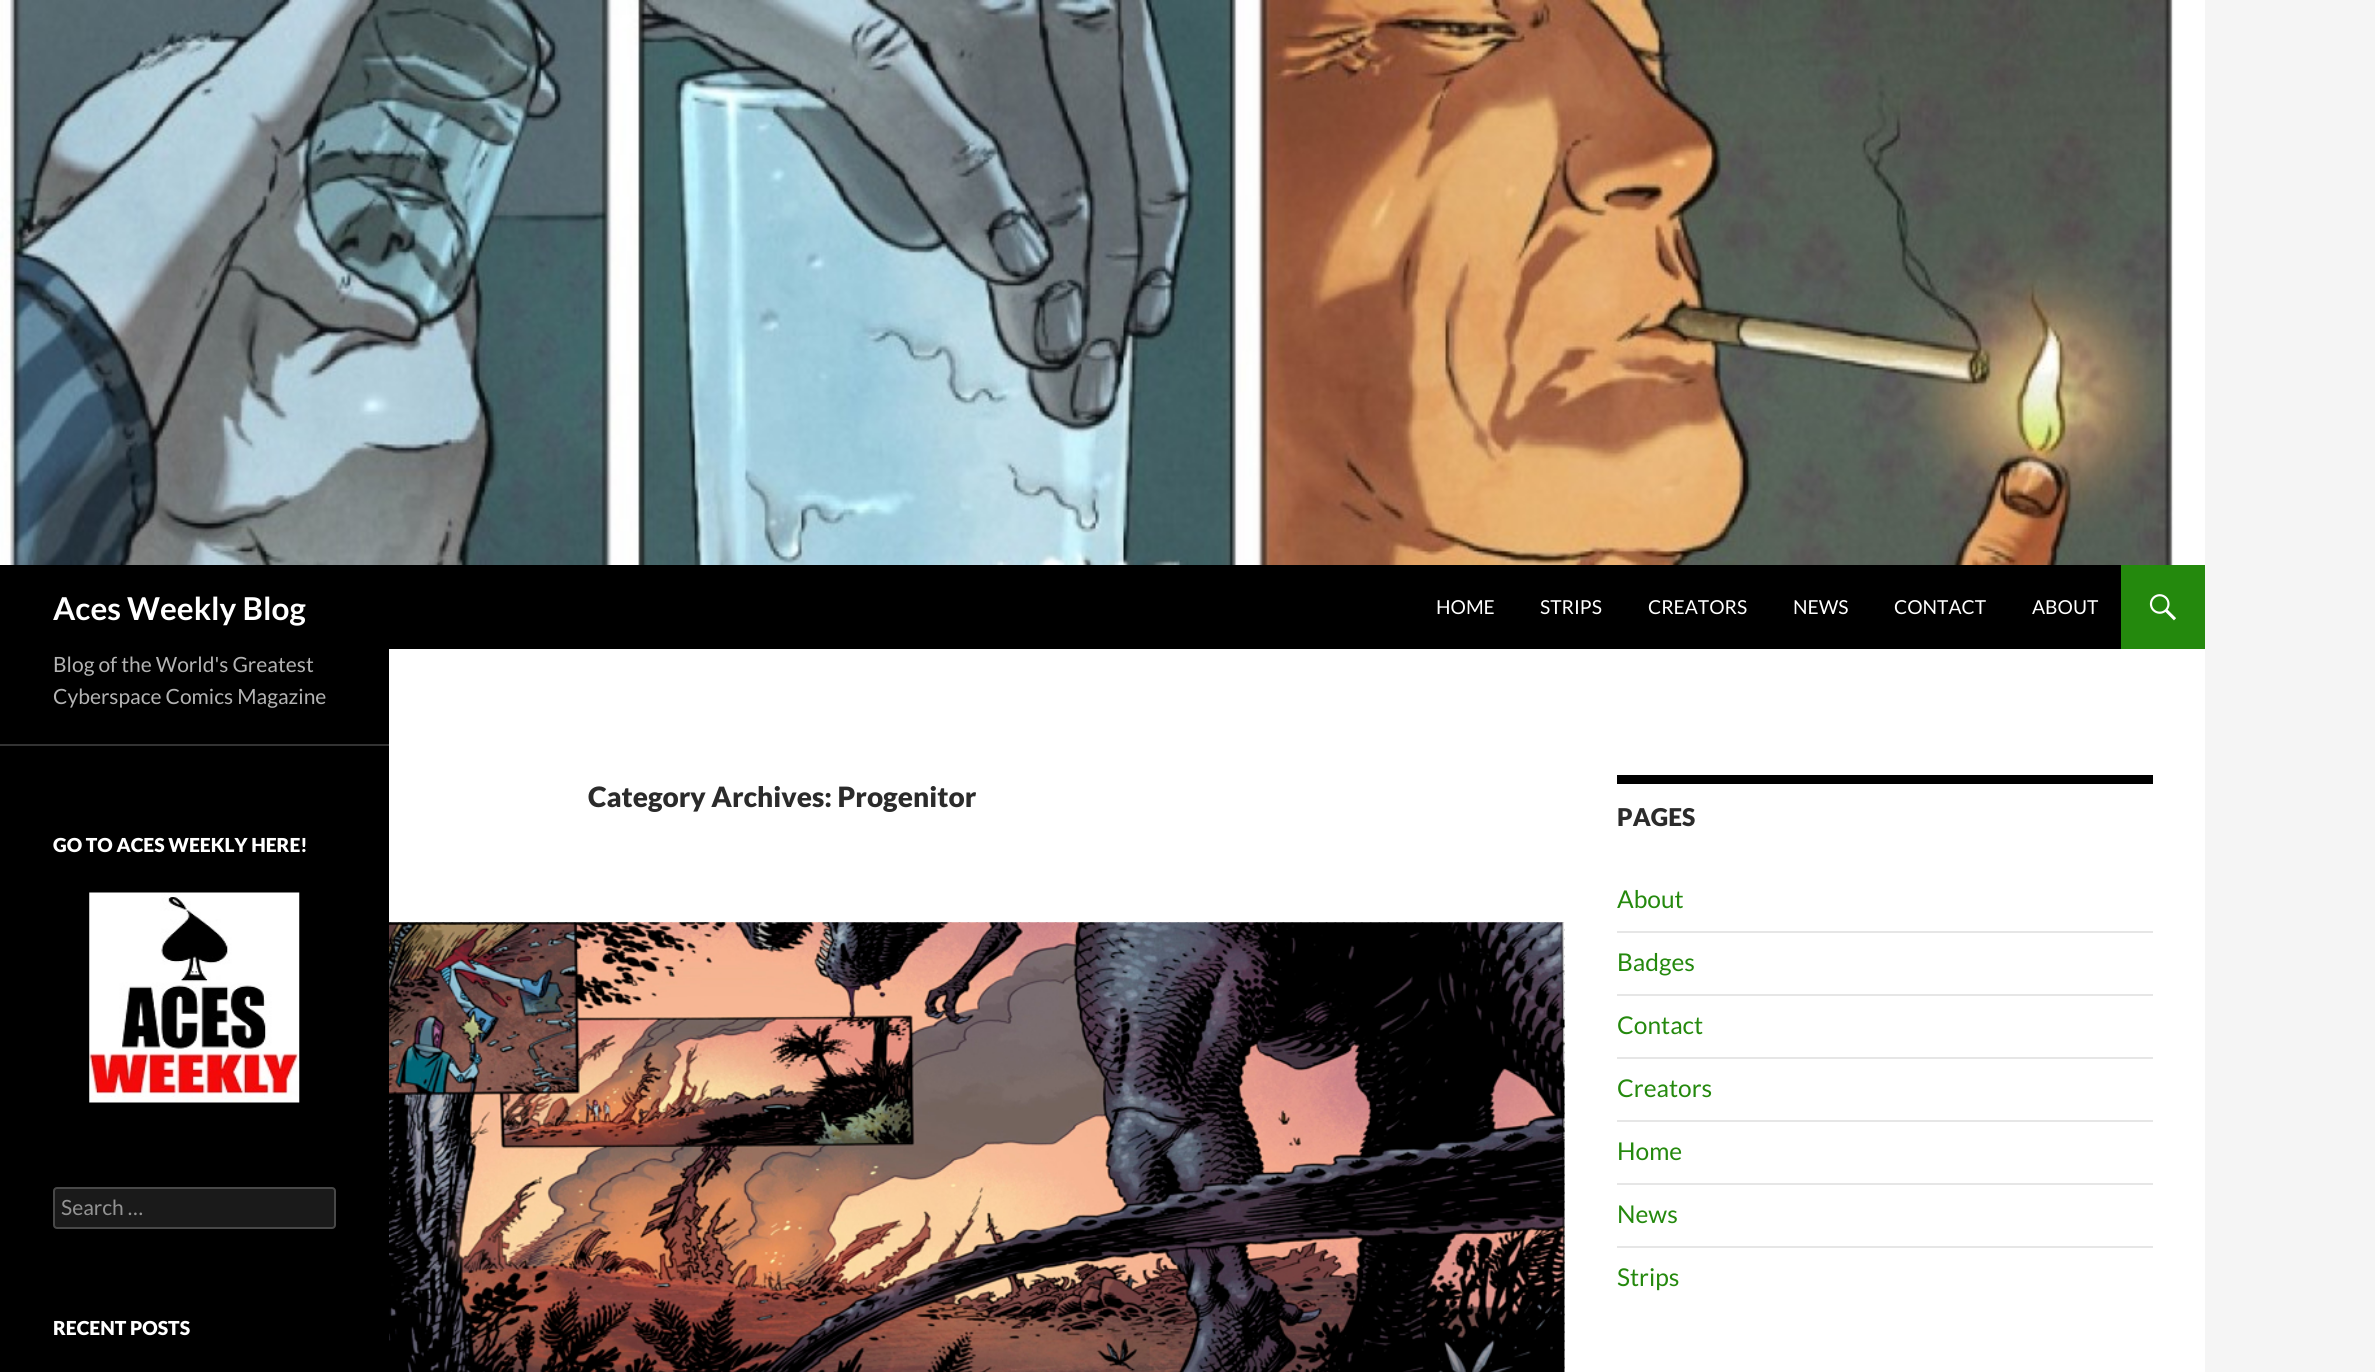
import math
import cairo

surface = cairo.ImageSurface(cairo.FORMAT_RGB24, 2375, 1372)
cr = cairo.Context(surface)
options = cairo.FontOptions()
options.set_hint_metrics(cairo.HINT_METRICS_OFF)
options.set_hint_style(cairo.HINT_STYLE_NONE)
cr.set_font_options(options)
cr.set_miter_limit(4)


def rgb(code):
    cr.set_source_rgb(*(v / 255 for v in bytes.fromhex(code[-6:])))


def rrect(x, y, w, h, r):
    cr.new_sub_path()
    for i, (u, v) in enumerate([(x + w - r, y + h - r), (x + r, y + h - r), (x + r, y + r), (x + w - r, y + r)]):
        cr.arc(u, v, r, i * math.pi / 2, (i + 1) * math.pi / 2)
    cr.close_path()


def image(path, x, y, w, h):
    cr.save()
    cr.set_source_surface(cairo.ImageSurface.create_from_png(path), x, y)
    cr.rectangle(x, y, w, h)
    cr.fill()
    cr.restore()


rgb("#f5f5f5")
cr.paint()
rgb("#ffffff")
cr.rectangle(389, 0, 1816, 1372)
cr.fill()
image("img/1.png", 0, 0, 2174, 565)
rgb("#000000")
cr.rectangle(0, 565, 2121, 84)
cr.fill()
rgb("#24890d")
cr.rectangle(2121, 565, 84, 84)
cr.fill()
image("img/2.png", 2149, 594, 27, 27)
rgb("#000000")
cr.rectangle(0, 649, 389, 723)
cr.fill()
rgb("#333333")
cr.rectangle(0, 744, 389, 2)
cr.fill()
image("img/3.png", 89, 892, 211, 211)
rgb("#1a1a1a")
rrect(53, 1187, 283, 42, 4)
cr.fill()
rrect(54, 1188, 281, 40, 3)
cr.set_source_rgba(1, 1, 1, 0.2)
cr.stroke()
rgb("#b2b2b2")
cr.rectangle(389, 922, 1176, 447)
cr.fill()
image("img/4.png", 389, 922, 1176, 450)
image("img/5.png", 389, 922, 1176, 450)
for x, y, w, h, color in [
    (1617, 775, 536, 9, "#000000"),
    (1617, 931, 536, 2, "#e6e6e6"),
    (1617, 994, 536, 2, "#e6e6e6"),
    (1617, 1057, 536, 2, "#e6e6e6"),
    (1617, 1120, 536, 2, "#e6e6e6"),
    (1617, 1183, 536, 2, "#e6e6e6"),
    (1617, 1246, 536, 2, "#e6e6e6"),
]:
    rgb(color)
    cr.rectangle(x, y, w, h)
    cr.fill()
cr.select_font_face("Lato", cairo.FONT_SLANT_NORMAL, cairo.FONT_WEIGHT_BOLD)
cr.set_font_size(31.5)
rgb("#ffffff")
cr.move_to(53, 620)
cr.show_text("Aces Weekly Blog")
cr.select_font_face("Lato")
cr.set_font_size(19.25)
for x, y, s in [
    (1436, 614, "HOME"),
    (1540, 614, "STRIPS"),
    (1648, 614, "CREATORS"),
    (1793, 614, "NEWS"),
    (1894, 614, "CONTACT"),
    (2032, 614, "ABOUT"),
]:
    cr.move_to(x, y)
    cr.show_text(s)
cr.set_font_size(21)
rgb("#b3b3b3")
cr.move_to(53, 672)
cr.show_text("Blog of the World's Greatest")
cr.move_to(53, 704)
cr.show_text("Cyberspace Comics Magazine")
cr.select_font_face("Lato Black")
cr.set_font_size(19.25)
rgb("#ffffff")
cr.move_to(53, 852)
cr.show_text("GO TO ACES WEEKLY HERE!")
cr.select_font_face("Lato")
cr.set_font_size(21)
rgb("#939393")
cr.move_to(61, 1215)
cr.show_text("Search …")
cr.select_font_face("Lato Black")
cr.set_font_size(19.25)
rgb("#ffffff")
cr.move_to(53, 1335)
cr.show_text("RECENT POSTS")
cr.set_font_size(28)
rgb("#2b2b2b")
cr.move_to(588, 807)
cr.show_text("Category Archives: Progenitor")
cr.set_font_size(24.5)
cr.move_to(1617, 826)
cr.show_text("PAGES")
cr.select_font_face("Lato")
rgb("#24890d")
for x, y, s in [
    (1617, 908, "About"),
    (1617, 971, "Badges"),
    (1617, 1034, "Contact"),
    (1617, 1097, "Creators"),
    (1617, 1160, "Home"),
    (1617, 1223, "News"),
    (1617, 1286, "Strips"),
]:
    cr.move_to(x, y)
    cr.show_text(s)
surface.write_to_png("page.png")
